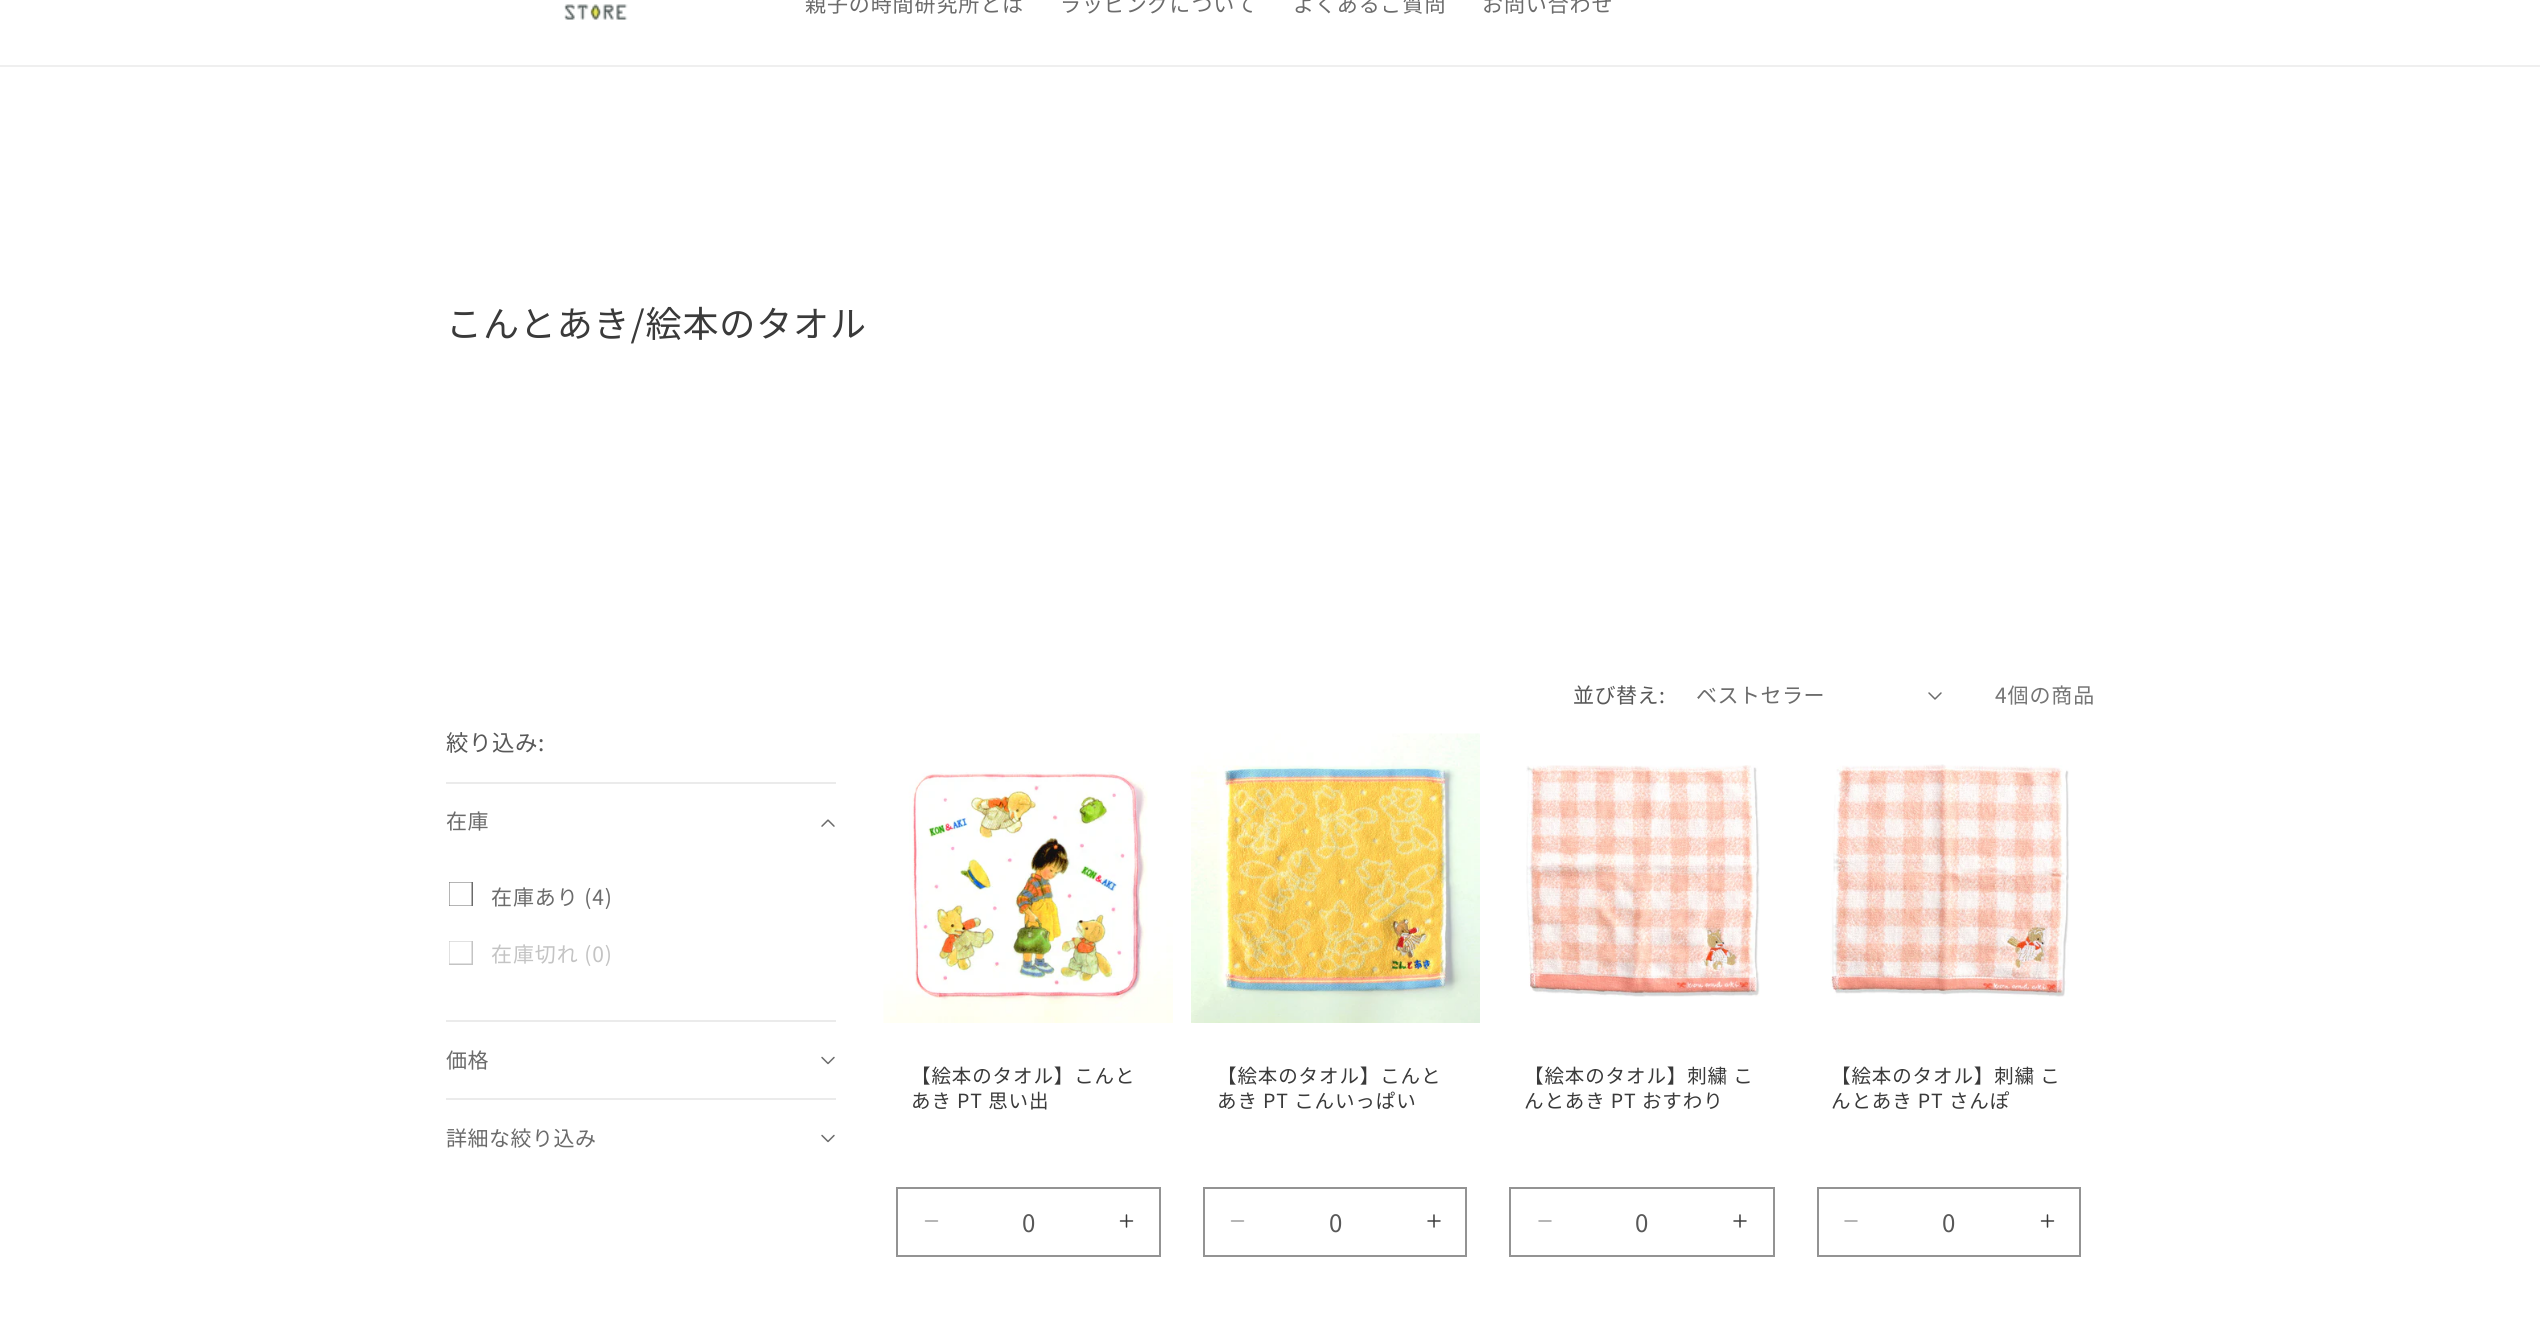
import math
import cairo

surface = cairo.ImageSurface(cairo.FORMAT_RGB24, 2540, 1338)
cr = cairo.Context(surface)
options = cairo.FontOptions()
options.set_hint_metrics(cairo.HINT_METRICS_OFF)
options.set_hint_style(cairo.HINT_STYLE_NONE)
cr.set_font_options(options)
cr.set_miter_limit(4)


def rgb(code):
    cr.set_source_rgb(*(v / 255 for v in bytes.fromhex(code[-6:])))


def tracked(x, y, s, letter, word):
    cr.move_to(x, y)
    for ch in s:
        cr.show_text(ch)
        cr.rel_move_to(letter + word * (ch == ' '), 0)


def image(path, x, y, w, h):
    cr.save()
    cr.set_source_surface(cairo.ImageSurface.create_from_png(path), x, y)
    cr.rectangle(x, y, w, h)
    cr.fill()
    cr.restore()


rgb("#ffffff")
cr.paint()
rgb("#efefef")
cr.rectangle(0, 65, 2540, 2)
cr.fill()
image("img/1.png", 564, 4, 64, 16)
image("img/2.png", 1928, 692, 14, 8)
rgb("#ebebeb")
cr.rectangle(446, 782, 390, 2)
cr.fill()
image("img/3.png", 821, 819, 14, 8)
cr.save()
cr.rectangle(449, 882, 24, 24)
cr.clip()
cr.rectangle(448.75, 881.75, 23.5, 24.5)
rgb("#6b6b6b")
cr.set_line_width(1.5)
cr.stroke()
cr.restore()
cr.save()
cr.rectangle(449, 941, 24, 24)
cr.clip()
cr.rectangle(448.75, 940.75, 23.5, 23.5)
rgb("#c4c4c4")
cr.set_line_width(1.5)
cr.stroke()
cr.restore()
cr.rectangle(446, 1020, 390, 2)
cr.fill()
image("img/4.png", 821, 1056, 14, 9)
cr.rectangle(446, 1098, 390, 2)
cr.fill()
image("img/4.png", 821, 1134, 14, 9)
image("img/5.png", 883, 772, 290, 251)
image("img/6.png", 924, 1220, 15, 2)
image("img/7.png", 1119, 1214, 15, 14)
cr.rectangle(897, 1188, 263, 68)
rgb("#939393")
cr.stroke()
image("img/8.png", 1191, 733, 289, 290)
image("img/6.png", 1230, 1220, 15, 2)
image("img/9.png", 1427, 1214, 14, 14)
cr.rectangle(1204, 1188, 262, 68)
cr.stroke()
image("img/10.png", 1526, 765, 234, 232)
image("img/11.png", 1538, 1220, 14, 2)
image("img/9.png", 1733, 1214, 14, 14)
cr.rectangle(1510, 1188, 264, 68)
cr.stroke()
image("img/12.png", 1830, 764, 239, 233)
image("img/11.png", 1844, 1220, 14, 2)
image("img/7.png", 2040, 1214, 15, 14)
cr.rectangle(1818, 1188, 262, 68)
cr.stroke()
cr.select_font_face("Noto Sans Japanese")
cr.set_font_size(21)
rgb("#6b6b6b")
for x, y, s in [
    (805, 12, "親子の時間研究所とは"),
    (1060, 12, "ラッピングについて"),
    (1293, 12, "よくあるご質問"),
    (1482, 12, "お問い合わせ"),
]:
    tracked(x, y, s, 0.9, 0)
cr.set_font_size(36)
rgb("#3a3a3a")
tracked(446, 337, "こんとあき/絵本のタオル", 0.9, 0)
cr.set_font_size(21)
rgb("#585858")
tracked(1573, 703, "並び替え:", 0.5, 0)
rgb("#6b6b6b")
tracked(1696, 703, "ベストセラー", 0.5, 0)
rgb("#757575")
tracked(1995, 703, "4個の商品", 0.9, 0)
cr.set_font_size(22.5)
rgb("#585858")
tracked(446, 751, "絞り込み:", 0.5, 0)
cr.set_font_size(21)
rgb("#6b6b6b")
tracked(446, 829, "在庫", 0.5, 0)
tracked(491, 905, "在庫あり (4)", 0.9, 0)
rgb("#c4c4c4")
tracked(491, 962, "在庫切れ (0)", 0.9, 0)
rgb("#6b6b6b")
tracked(446, 1068, "価格", 0.5, 0)
tracked(446, 1146, "詳細な絞り込み", 0.5, 0)
cr.set_font_size(19.5)
rgb("#3a3a3a")
tracked(911, 1083, "【絵本のタオル】こんと", 0.9, 0)
tracked(911, 1108, "あき PT 思い出", 0.9, 0)
cr.set_font_size(24)
rgb("#585858")
cr.move_to(1022, 1232)
cr.show_text("0")
cr.set_font_size(19.5)
rgb("#3a3a3a")
tracked(1217, 1083, "【絵本のタオル】こんと", 0.9, 0)
tracked(1217, 1108, "あき PT こんいっぱい", 0.9, 0)
cr.set_font_size(24)
rgb("#585858")
cr.move_to(1329, 1232)
cr.show_text("0")
cr.set_font_size(19.5)
rgb("#3a3a3a")
tracked(1524, 1083, "【絵本のタオル】刺繍 こ", 0.9, 0)
tracked(1524, 1108, "んとあき PT おすわり", 0.9, 0)
cr.set_font_size(24)
rgb("#585858")
cr.move_to(1635, 1232)
cr.show_text("0")
cr.set_font_size(19.5)
rgb("#3a3a3a")
tracked(1831, 1083, "【絵本のタオル】刺繍 こ", 0.9, 0)
tracked(1831, 1108, "んとあき PT さんぽ", 0.9, 0)
cr.set_font_size(24)
rgb("#585858")
cr.move_to(1942, 1232)
cr.show_text("0")
surface.write_to_png("page.png")
